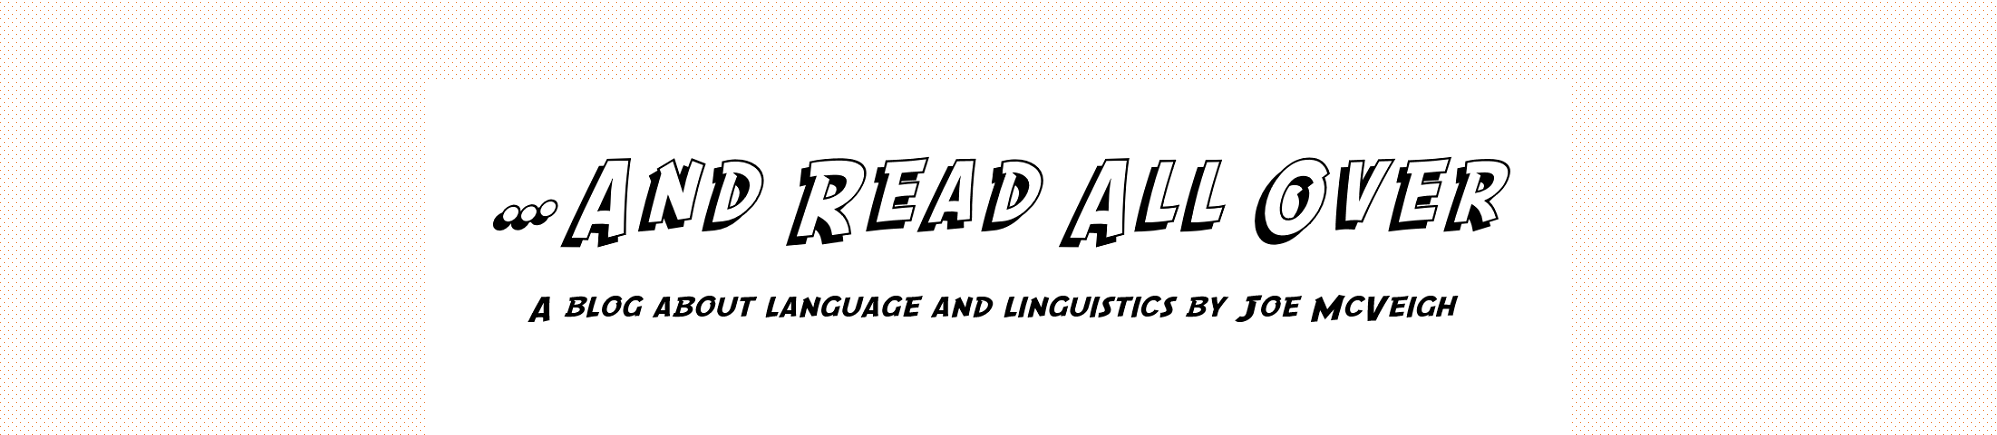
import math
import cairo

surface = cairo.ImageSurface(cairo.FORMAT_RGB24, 1997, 435)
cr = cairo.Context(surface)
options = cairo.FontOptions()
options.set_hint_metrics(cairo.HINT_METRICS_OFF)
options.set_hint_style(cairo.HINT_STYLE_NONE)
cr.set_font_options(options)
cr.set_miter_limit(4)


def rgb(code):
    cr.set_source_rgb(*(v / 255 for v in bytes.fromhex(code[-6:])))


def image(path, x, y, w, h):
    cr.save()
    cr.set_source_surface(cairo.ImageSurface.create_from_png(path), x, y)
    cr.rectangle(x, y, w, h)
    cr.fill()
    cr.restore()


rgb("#ffffff")
cr.paint()
image("img/1.png", 0, 2, 1996, 433)
rgb("#ffffff")
cr.rectangle(428, 82, 1141, 353)
cr.fill()
image("img/2.png", 493, 156, 1018, 166)
surface.write_to_png("page.png")
